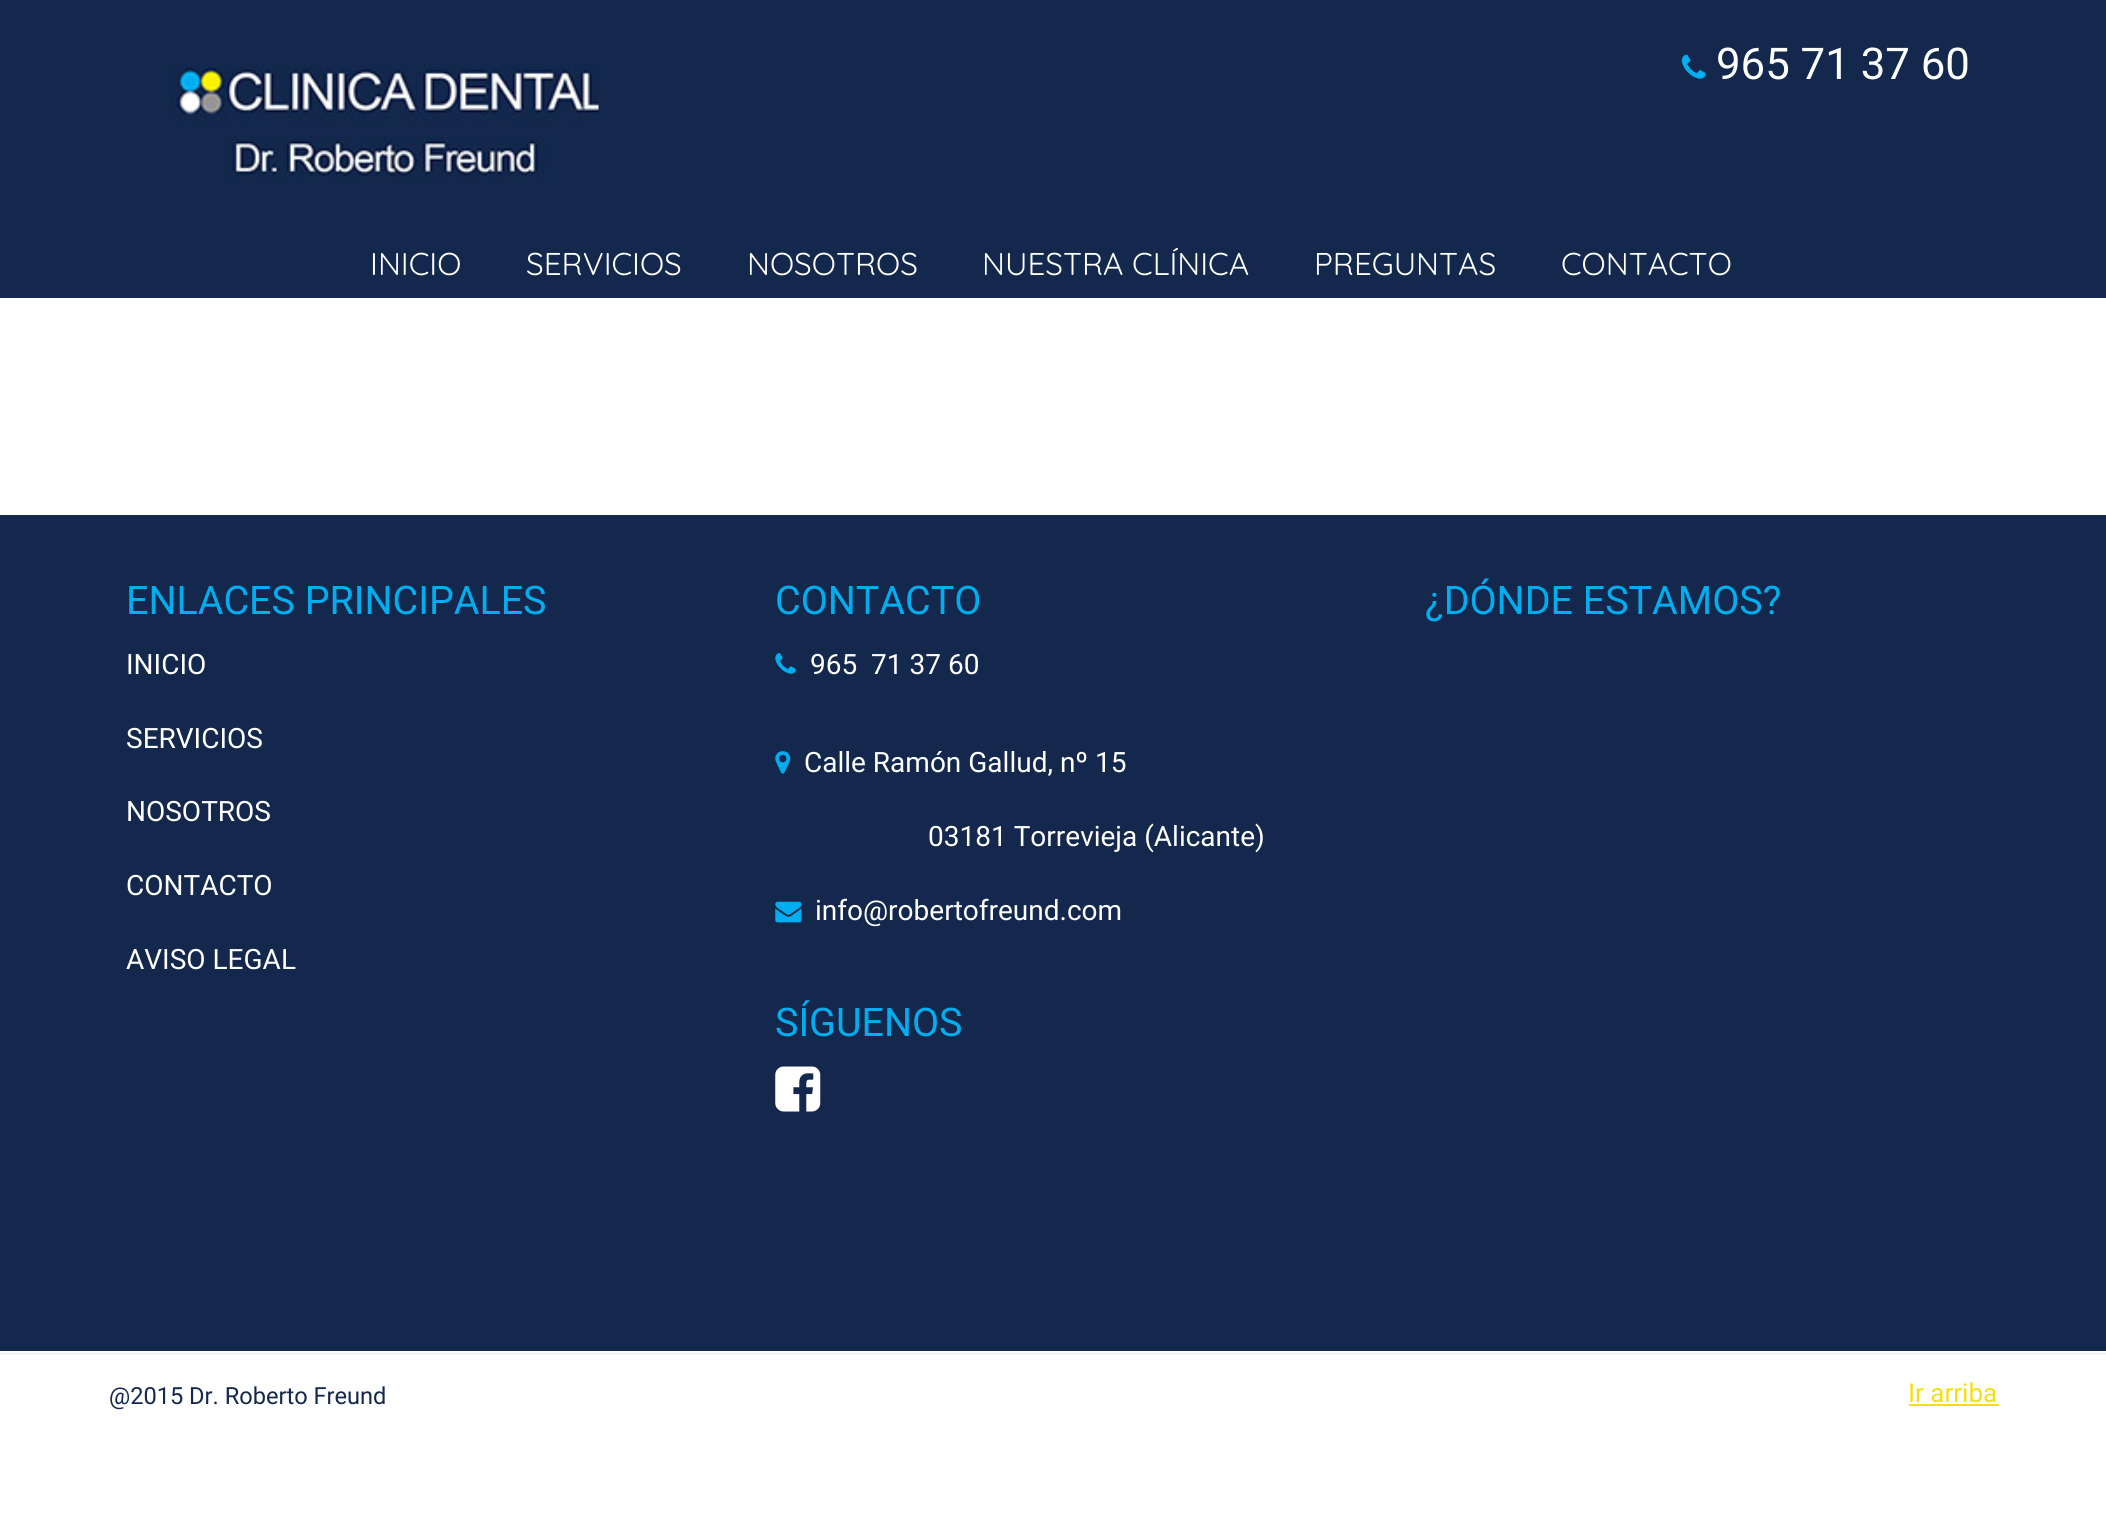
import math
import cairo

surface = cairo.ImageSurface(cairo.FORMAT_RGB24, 2106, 1537)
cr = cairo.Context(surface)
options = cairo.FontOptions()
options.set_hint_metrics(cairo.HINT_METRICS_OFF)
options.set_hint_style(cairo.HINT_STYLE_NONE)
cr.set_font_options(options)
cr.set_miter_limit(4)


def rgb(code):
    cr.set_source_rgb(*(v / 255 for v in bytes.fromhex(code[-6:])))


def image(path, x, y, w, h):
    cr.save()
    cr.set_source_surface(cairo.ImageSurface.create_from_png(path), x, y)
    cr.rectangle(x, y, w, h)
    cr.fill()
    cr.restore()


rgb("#ffffff")
cr.paint()
rgb("#13284c")
cr.rectangle(0, 0, 2106, 298)
cr.fill()
image("img/1.png", 168, 66, 431, 113)
image("img/2.png", 1681, 54, 25, 25)
cr.rectangle(0, 515, 2106, 836)
cr.fill()
image("img/3.png", 775, 653, 21, 21)
image("img/4.png", 775, 751, 16, 23)
image("img/5.png", 775, 901, 27, 22)
image("img/6.png", 775, 1066, 46, 46)
image("img/7.png", 0, 1352, 2106, 3)
rgb("#f3e014")
cr.rectangle(1909, 1404, 90, 2)
cr.fill()
cr.select_font_face("Roboto")
cr.set_font_size(43.75)
rgb("#ffffff")
cr.move_to(1716, 79)
cr.show_text("965 71 37 60")
cr.select_font_face("Quicksand Light")
cr.set_font_size(31.5)
for x, y, s in [
    (370, 275, "INICIO"),
    (526, 275, "SERVICIOS"),
    (747, 275, "NOSOTROS"),
    (982, 275, "NUESTRA CLÍNICA"),
    (1314, 275, "PREGUNTAS"),
    (1561, 275, "CONTACTO"),
]:
    cr.move_to(x, y)
    cr.show_text(s)
cr.select_font_face("Roboto")
cr.set_font_size(39.4)
rgb("#00aef0")
cr.move_to(126, 614)
cr.show_text("ENLACES PRINCIPALES")
cr.set_font_size(28)
rgb("#ffffff")
for x, y, s in [
    (126, 674, "INICIO"),
    (126, 748, "SERVICIOS"),
    (126, 821, "NOSOTROS"),
    (126, 895, "CONTACTO"),
    (126, 969, "AVISO LEGAL"),
]:
    cr.move_to(x, y)
    cr.show_text(s)
cr.set_font_size(39.4)
rgb("#00aef0")
cr.move_to(775, 614)
cr.show_text("CONTACTO")
cr.set_font_size(28)
rgb("#ffffff")
for x, y, s in [
    (810, 674, "965  71 37 60"),
    (804, 772, "Calle Ramón Gallud, nº 15"),
    (928, 846, "03181 Torrevieja (Alicante)"),
    (815, 920, "info@robertofreund.com"),
]:
    cr.move_to(x, y)
    cr.show_text(s)
cr.set_font_size(39.4)
rgb("#00aef0")
cr.move_to(775, 1036)
cr.show_text("SÍGUENOS")
cr.move_to(1425, 614)
cr.show_text("¿DÓNDE ESTAMOS?")
cr.set_font_size(23.6)
rgb("#13284c")
cr.move_to(109, 1404)
cr.show_text("@2015 Dr. Roberto Freund")
cr.set_font_size(26)
rgb("#f3e014")
cr.move_to(1908, 1402)
cr.show_text("Ir arriba")
surface.write_to_png("page.png")
